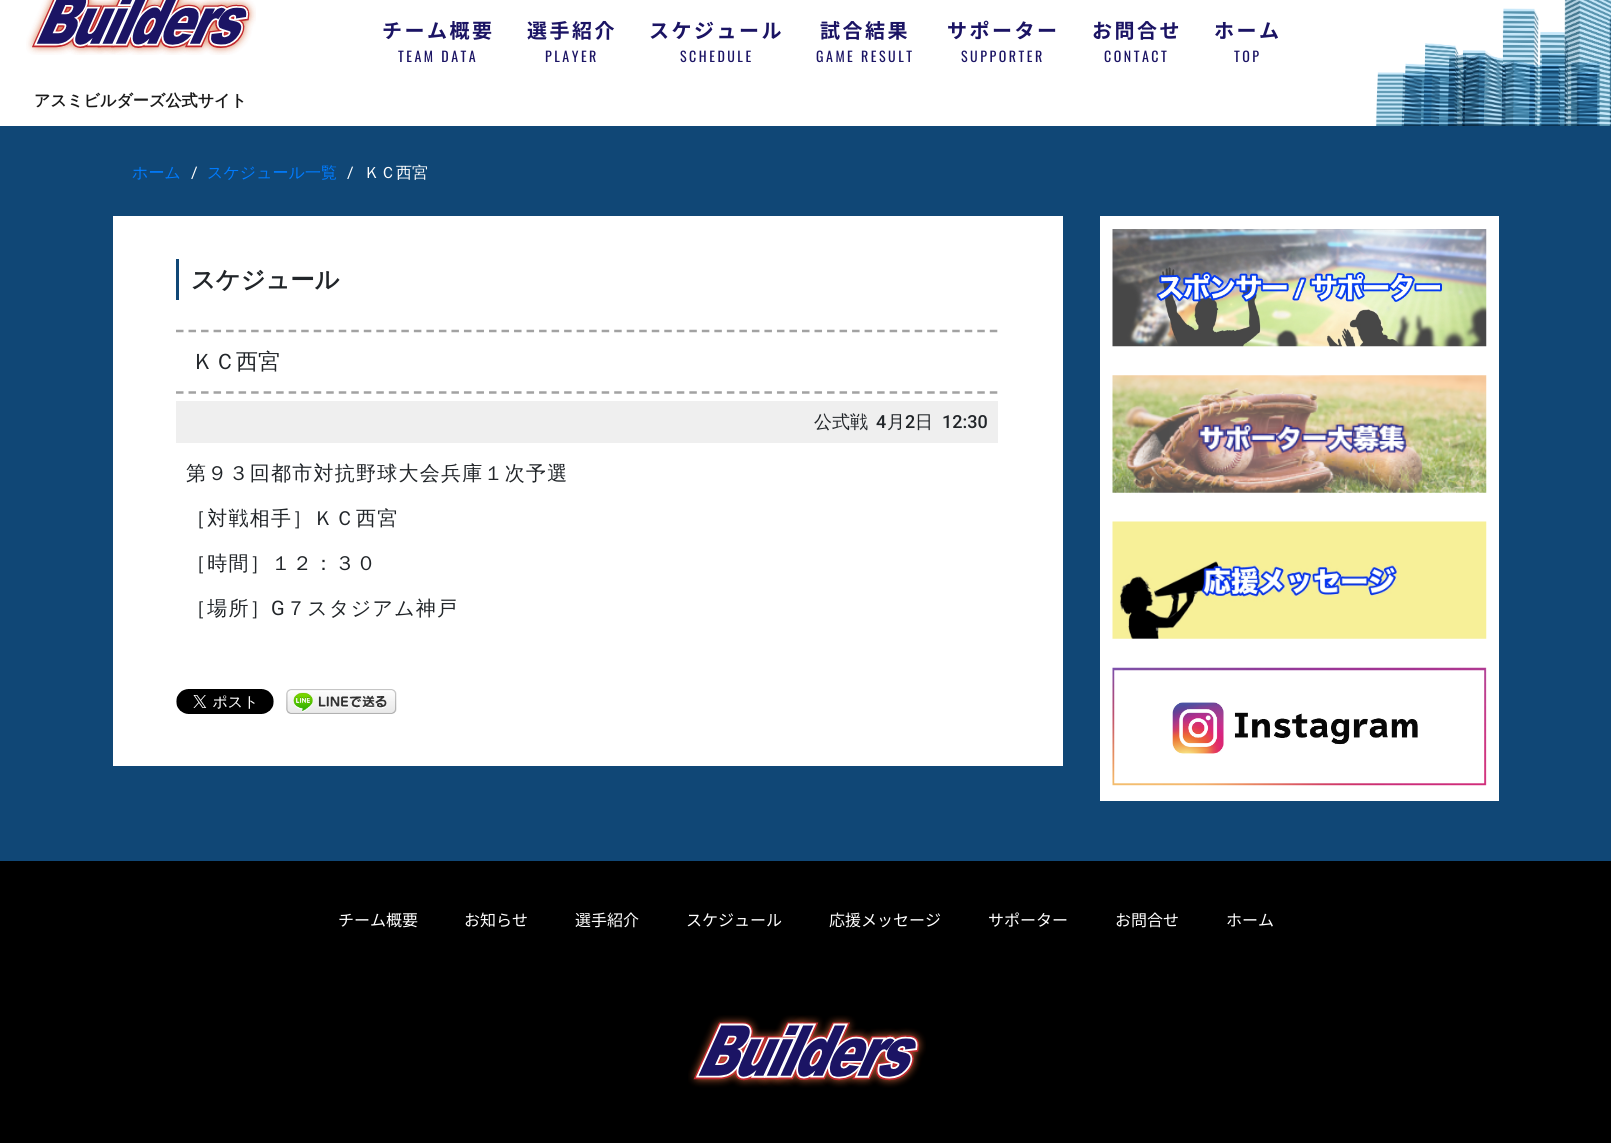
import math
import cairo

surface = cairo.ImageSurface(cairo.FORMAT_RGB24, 1611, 1143)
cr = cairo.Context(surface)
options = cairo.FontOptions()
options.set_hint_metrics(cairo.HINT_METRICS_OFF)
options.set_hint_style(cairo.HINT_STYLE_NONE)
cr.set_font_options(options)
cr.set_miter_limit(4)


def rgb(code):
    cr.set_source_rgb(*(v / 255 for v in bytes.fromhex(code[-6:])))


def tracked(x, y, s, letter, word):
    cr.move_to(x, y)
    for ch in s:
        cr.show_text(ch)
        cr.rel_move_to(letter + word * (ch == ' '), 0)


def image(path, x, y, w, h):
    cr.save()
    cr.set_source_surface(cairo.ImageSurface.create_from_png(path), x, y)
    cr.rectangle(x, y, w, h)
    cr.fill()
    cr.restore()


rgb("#ffffff")
cr.paint()
image("img/1.png", 1375, 0, 236, 126)
image("img/2.png", 26, 0, 230, 55)
for x, y, w, h, color in [
    (0, 126, 1611, 735, "#104776"),
    (113, 216, 950, 550, "#ffffff"),
    (176, 259, 3, 41, "#104776"),
]:
    rgb(color)
    cr.rectangle(x, y, w, h)
    cr.fill()
cr.new_path()
cr.move_to(176, 331)
cr.line_to(997.5, 331)
rgb("#a2a2a2")
cr.set_line_width(2.5)
cr.set_dash([7.5, 5.02])
cr.stroke()
cr.new_path()
cr.move_to(176, 392.5)
cr.line_to(997.5, 392.5)
cr.stroke()
rgb("#efefef")
cr.rectangle(176, 401, 822, 42)
cr.fill()
image("img/3.png", 176, 689, 98, 25)
image("img/4.png", 286, 689, 111, 25)
rgb("#ffffff")
cr.rectangle(1100, 216, 399, 585)
cr.fill()
image("img/5.png", 1112, 229, 375, 118)
image("img/6.png", 1112, 375, 375, 118)
image("img/7.png", 1112, 521, 375, 118)
image("img/8.png", 1112, 667, 375, 119)
rgb("#000000")
cr.rectangle(0, 861, 1611, 282)
cr.fill()
image("img/9.png", 688, 1015, 238, 73)
cr.select_font_face("Noto Sans JP", cairo.FONT_SLANT_NORMAL, cairo.FONT_WEIGHT_BOLD)
cr.set_font_size(20)
rgb("#1b1464")
tracked(382, 38, "チーム概要", 2.5, 0)
cr.select_font_face("Oswald")
cr.set_font_size(14)
tracked(398, 62, "TEAM DATA", 2.5, 0)
cr.select_font_face("Noto Sans JP", cairo.FONT_SLANT_NORMAL, cairo.FONT_WEIGHT_BOLD)
cr.set_font_size(20)
tracked(527, 38, "選手紹介", 2.5, 0)
cr.select_font_face("Oswald")
cr.set_font_size(14)
tracked(545, 62, "PLAYER", 2.5, 0)
cr.select_font_face("Noto Sans JP", cairo.FONT_SLANT_NORMAL, cairo.FONT_WEIGHT_BOLD)
cr.set_font_size(20)
tracked(649, 38, "スケジュール", 2.5, 0)
cr.select_font_face("Oswald")
cr.set_font_size(14)
tracked(680, 62, "SCHEDULE", 2.5, 0)
cr.select_font_face("Noto Sans JP", cairo.FONT_SLANT_NORMAL, cairo.FONT_WEIGHT_BOLD)
cr.set_font_size(20)
tracked(820, 38, "試合結果", 2.5, 0)
cr.select_font_face("Oswald")
cr.set_font_size(14)
tracked(816, 62, "GAME RESULT", 2.5, 0)
cr.select_font_face("Noto Sans JP", cairo.FONT_SLANT_NORMAL, cairo.FONT_WEIGHT_BOLD)
cr.set_font_size(20)
tracked(947, 38, "サポーター", 2.5, 0)
cr.select_font_face("Oswald")
cr.set_font_size(14)
tracked(961, 62, "SUPPORTER", 2.5, 0)
cr.select_font_face("Noto Sans JP", cairo.FONT_SLANT_NORMAL, cairo.FONT_WEIGHT_BOLD)
cr.set_font_size(20)
tracked(1092, 38, "お問合せ", 2.5, 0)
cr.select_font_face("Oswald")
cr.set_font_size(14)
tracked(1104, 62, "CONTACT", 2.5, 0)
cr.select_font_face("Noto Sans JP", cairo.FONT_SLANT_NORMAL, cairo.FONT_WEIGHT_BOLD)
cr.set_font_size(20)
tracked(1214, 38, "ホーム", 2.5, 0)
cr.select_font_face("Oswald")
cr.set_font_size(14)
tracked(1234, 62, "TOP", 2.5, 0)
cr.select_font_face("WenQuanYi Zen Hei", cairo.FONT_SLANT_NORMAL, cairo.FONT_WEIGHT_BOLD)
cr.set_font_size(16.1)
rgb("#1a1a1a")
cr.move_to(34, 106)
cr.show_text("アスミビルダーズ公式サイト")
cr.select_font_face("WenQuanYi Zen Hei Medium")
cr.set_font_size(16)
rgb("#007bff")
cr.move_to(132, 178)
cr.show_text("ホーム")
cr.select_font_face("Roboto")
rgb("#ffffff")
cr.move_to(191, 178)
cr.show_text("/")
cr.select_font_face("WenQuanYi Zen Hei Medium")
rgb("#007bff")
cr.move_to(207, 178)
cr.show_text("スケジュール一覧")
cr.select_font_face("Roboto")
rgb("#ffffff")
cr.move_to(347, 178)
cr.show_text("/")
cr.select_font_face("WenQuanYi Zen Hei Medium")
cr.move_to(364, 178)
cr.show_text("ＫＣ西宮")
cr.select_font_face("WenQuanYi Zen Hei", cairo.FONT_SLANT_NORMAL, cairo.FONT_WEIGHT_BOLD)
cr.set_font_size(24.25)
rgb("#212529")
cr.move_to(191, 288)
cr.show_text("スケジュール")
cr.select_font_face("WenQuanYi Zen Hei Medium")
cr.set_font_size(22)
cr.move_to(192, 369)
cr.show_text("ＫＣ西宮")
cr.set_font_size(18)
cr.move_to(814, 428)
cr.show_text("公式戦")
cr.select_font_face("Roboto Medium")
cr.move_to(876, 428)
cr.show_text("4")
cr.select_font_face("WenQuanYi Zen Hei Medium")
cr.move_to(887, 428)
cr.show_text("月")
cr.select_font_face("Roboto Medium")
cr.move_to(905, 428)
cr.show_text("2")
cr.select_font_face("WenQuanYi Zen Hei Medium")
cr.move_to(915, 428)
cr.show_text("日")
cr.select_font_face("Roboto Medium")
cr.move_to(942, 428)
cr.show_text("12:30")
cr.select_font_face("WenQuanYi Zen Hei Medium")
cr.set_font_size(20)
for x, y, s in [
    (186, 480, "第９３回都市対抗野球大会兵庫１次予選"),
    (186, 525, "［対戦相手］ＫＣ西宮"),
    (186, 570, "［時間］１２：３０"),
    (186, 615, "［場所］"),
]:
    tracked(x, y, s, 1.25, 0)
cr.select_font_face("Roboto")
tracked(271, 615, "G", 1.25, 0)
cr.select_font_face("WenQuanYi Zen Hei Medium")
tracked(286, 615, "７スタジアム神戸", 1.25, 0)
cr.select_font_face("Noto Sans JP")
cr.set_font_size(16)
rgb("#ffffff")
for x, y, s in [
    (338, 926, "チーム概要"),
    (464, 926, "お知らせ"),
    (575, 926, "選手紹介"),
    (686, 926, "スケジュール"),
    (829, 926, "応援メッセージ"),
    (988, 926, "サポーター"),
    (1115, 926, "お問合せ"),
    (1226, 926, "ホーム"),
]:
    cr.move_to(x, y)
    cr.show_text(s)
surface.write_to_png("page.png")
